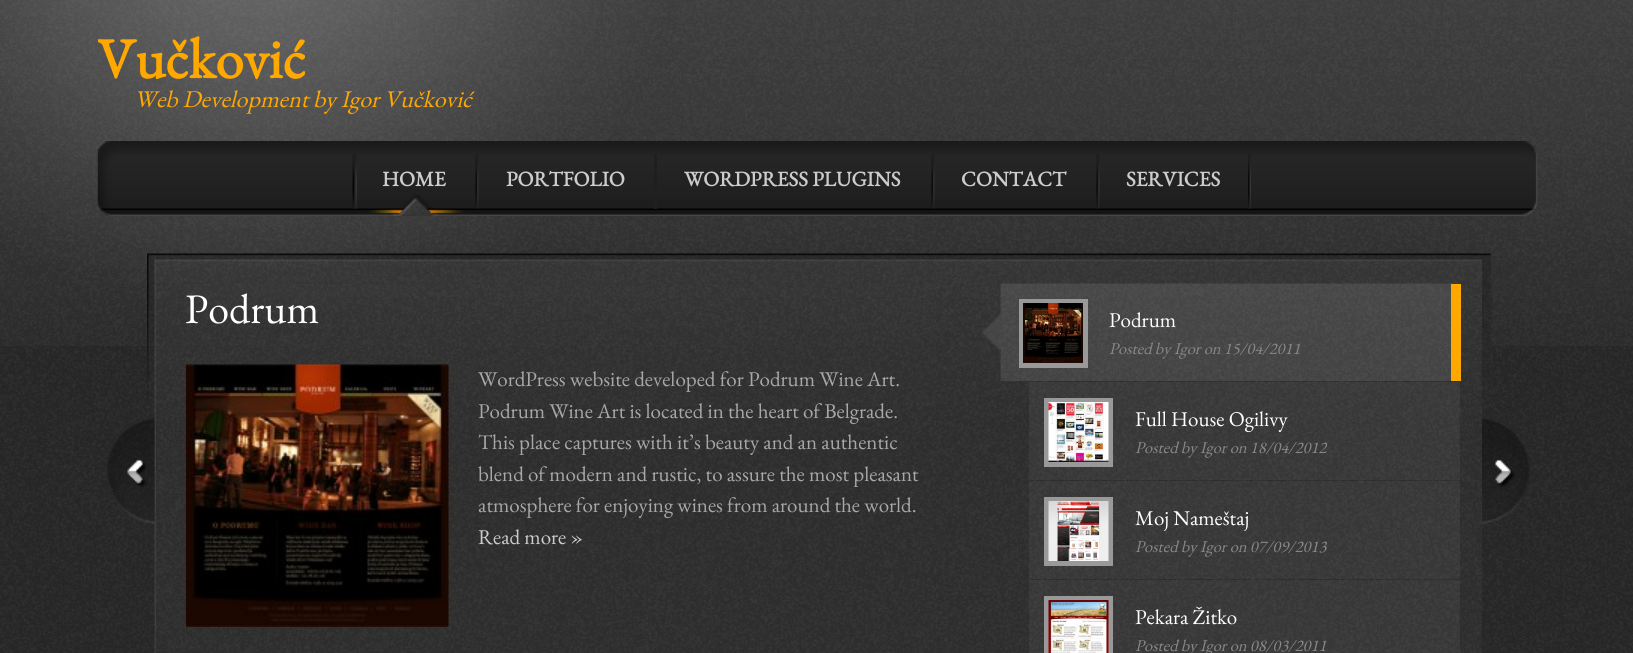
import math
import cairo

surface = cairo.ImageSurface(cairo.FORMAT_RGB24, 1633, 653)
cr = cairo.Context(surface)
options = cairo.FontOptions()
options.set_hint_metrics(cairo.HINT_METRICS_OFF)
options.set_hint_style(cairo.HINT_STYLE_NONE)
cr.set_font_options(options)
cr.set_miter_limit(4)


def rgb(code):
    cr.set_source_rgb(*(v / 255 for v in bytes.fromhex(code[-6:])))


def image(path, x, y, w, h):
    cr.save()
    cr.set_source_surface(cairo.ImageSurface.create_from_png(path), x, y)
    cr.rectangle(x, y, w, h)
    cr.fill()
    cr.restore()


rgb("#ffffff")
cr.paint()
image("img/1.png", 0, 0, 1633, 653)
image("img/2.png", 0, 0, 1633, 346)
image("img/3.png", 97, 141, 1441, 75)
image("img/4.png", 1248, 154, 3, 55)
image("img/5.png", 352, 154, 5, 55)
image("img/6.png", 475, 154, 4, 55)
rgb("#1f1f1f")
cr.rectangle(654, 154, 3, 55)
cr.fill()
image("img/6.png", 931, 154, 4, 55)
image("img/6.png", 1096, 154, 4, 55)
image("img/7.png", 369, 194, 94, 22)
image("img/8.png", 147, 253, 9, 400)
image("img/9.png", 107, 418, 48, 106)
image("img/10.png", 156, 253, 1326, 400)
image("img/11.png", 186, 284, 750, 369)
image("img/12.png", 186, 364, 263, 263)
image("img/13.png", 982, 283, 472, 98)
rgb("#ffa800")
cr.rectangle(1451, 284, 10, 97)
cr.fill()
rgb("#999999")
cr.rectangle(1019, 299, 69, 69)
cr.fill()
image("img/14.png", 1023, 303, 60, 60)
cr.set_source_rgba(1, 1, 1, 0.05)
cr.rectangle(1029, 382, 431, 98)
cr.fill()
rgb("#999999")
cr.rectangle(1044, 398, 69, 69)
cr.fill()
image("img/15.png", 1048, 402, 61, 60)
cr.set_source_rgba(1, 1, 1, 0.05)
cr.rectangle(1029, 481, 431, 98)
cr.fill()
rgb("#999999")
cr.rectangle(1044, 497, 69, 69)
cr.fill()
image("img/16.png", 1048, 501, 61, 60)
cr.set_source_rgba(1, 1, 1, 0.05)
cr.rectangle(1029, 580, 431, 73)
cr.fill()
rgb("#999999")
cr.rectangle(1044, 596, 69, 57)
cr.fill()
image("img/17.png", 1048, 600, 61, 53)
image("img/18.png", 1482, 253, 11, 400)
image("img/19.png", 1482, 418, 48, 106)
cr.save()
cr.rectangle(98, 0, 1440, 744)
cr.clip()
cr.select_font_face("EB Garamond", cairo.FONT_SLANT_NORMAL, cairo.FONT_WEIGHT_BOLD)
cr.set_font_size(57)
rgb("#ffa800")
cr.move_to(97, 78)
cr.show_text("Vučković")
cr.restore()
cr.select_font_face("EB Garamond", cairo.FONT_SLANT_ITALIC)
cr.set_font_size(24)
rgb("#ffa800")
cr.move_to(134, 107)
cr.show_text("Web Development by Igor Vučković")
cr.select_font_face("EB Garamond", cairo.FONT_SLANT_NORMAL, cairo.FONT_WEIGHT_BOLD)
cr.set_font_size(21)
rgb("#cccccc")
for x, y, s in [
    (382, 186, "HOME"),
    (506, 186, "PORTFOLIO"),
    (684, 186, "WORDPRESS PLUGINS"),
    (961, 186, "CONTACT"),
    (1126, 186, "SERVICES"),
]:
    cr.move_to(x, y)
    cr.show_text(s)
cr.select_font_face("EB Garamond")
cr.set_font_size(42)
rgb("#ffffff")
cr.move_to(185, 323)
cr.show_text("Podrum")
cr.set_font_size(21)
rgb("#a8a8a8")
for x, y, s in [
    (478, 386, "WordPress website developed for Podrum Wine Art."),
    (478, 418, "Podrum Wine Art is located in the heart of Belgrade."),
    (478, 449, "This place captures with it’s beauty and an authentic"),
    (478, 481, "blend of modern and rustic, to assure the most pleasant"),
    (478, 512, "atmosphere for enjoying wines from around the world."),
]:
    cr.move_to(x, y)
    cr.show_text(s)
rgb("#cccccc")
cr.move_to(478, 544)
cr.show_text("Read more »")
rgb("#ffffff")
cr.move_to(1109, 327)
cr.show_text("Podrum")
cr.select_font_face("EB Garamond", cairo.FONT_SLANT_ITALIC)
cr.set_font_size(16.5)
rgb("#888888")
cr.move_to(1109, 354)
cr.show_text("Posted by Igor on 15/04/2011")
cr.select_font_face("EB Garamond")
cr.set_font_size(21)
rgb("#ffffff")
cr.move_to(1135, 426)
cr.show_text("Full House Ogilivy")
cr.select_font_face("EB Garamond", cairo.FONT_SLANT_ITALIC)
cr.set_font_size(16.5)
rgb("#888888")
cr.move_to(1135, 453)
cr.show_text("Posted by Igor on 18/04/2012")
cr.select_font_face("EB Garamond")
cr.set_font_size(21)
rgb("#ffffff")
cr.move_to(1135, 525)
cr.show_text("Moj Nameštaj")
cr.select_font_face("EB Garamond", cairo.FONT_SLANT_ITALIC)
cr.set_font_size(16.5)
rgb("#888888")
cr.move_to(1135, 552)
cr.show_text("Posted by Igor on 07/09/2013")
cr.select_font_face("EB Garamond")
cr.set_font_size(21)
rgb("#ffffff")
cr.move_to(1135, 624)
cr.show_text("Pekara Žitko")
cr.select_font_face("EB Garamond", cairo.FONT_SLANT_ITALIC)
cr.set_font_size(16.5)
rgb("#888888")
cr.move_to(1135, 651)
cr.show_text("Posted by Igor on 08/03/2011")
surface.write_to_png("page.png")
